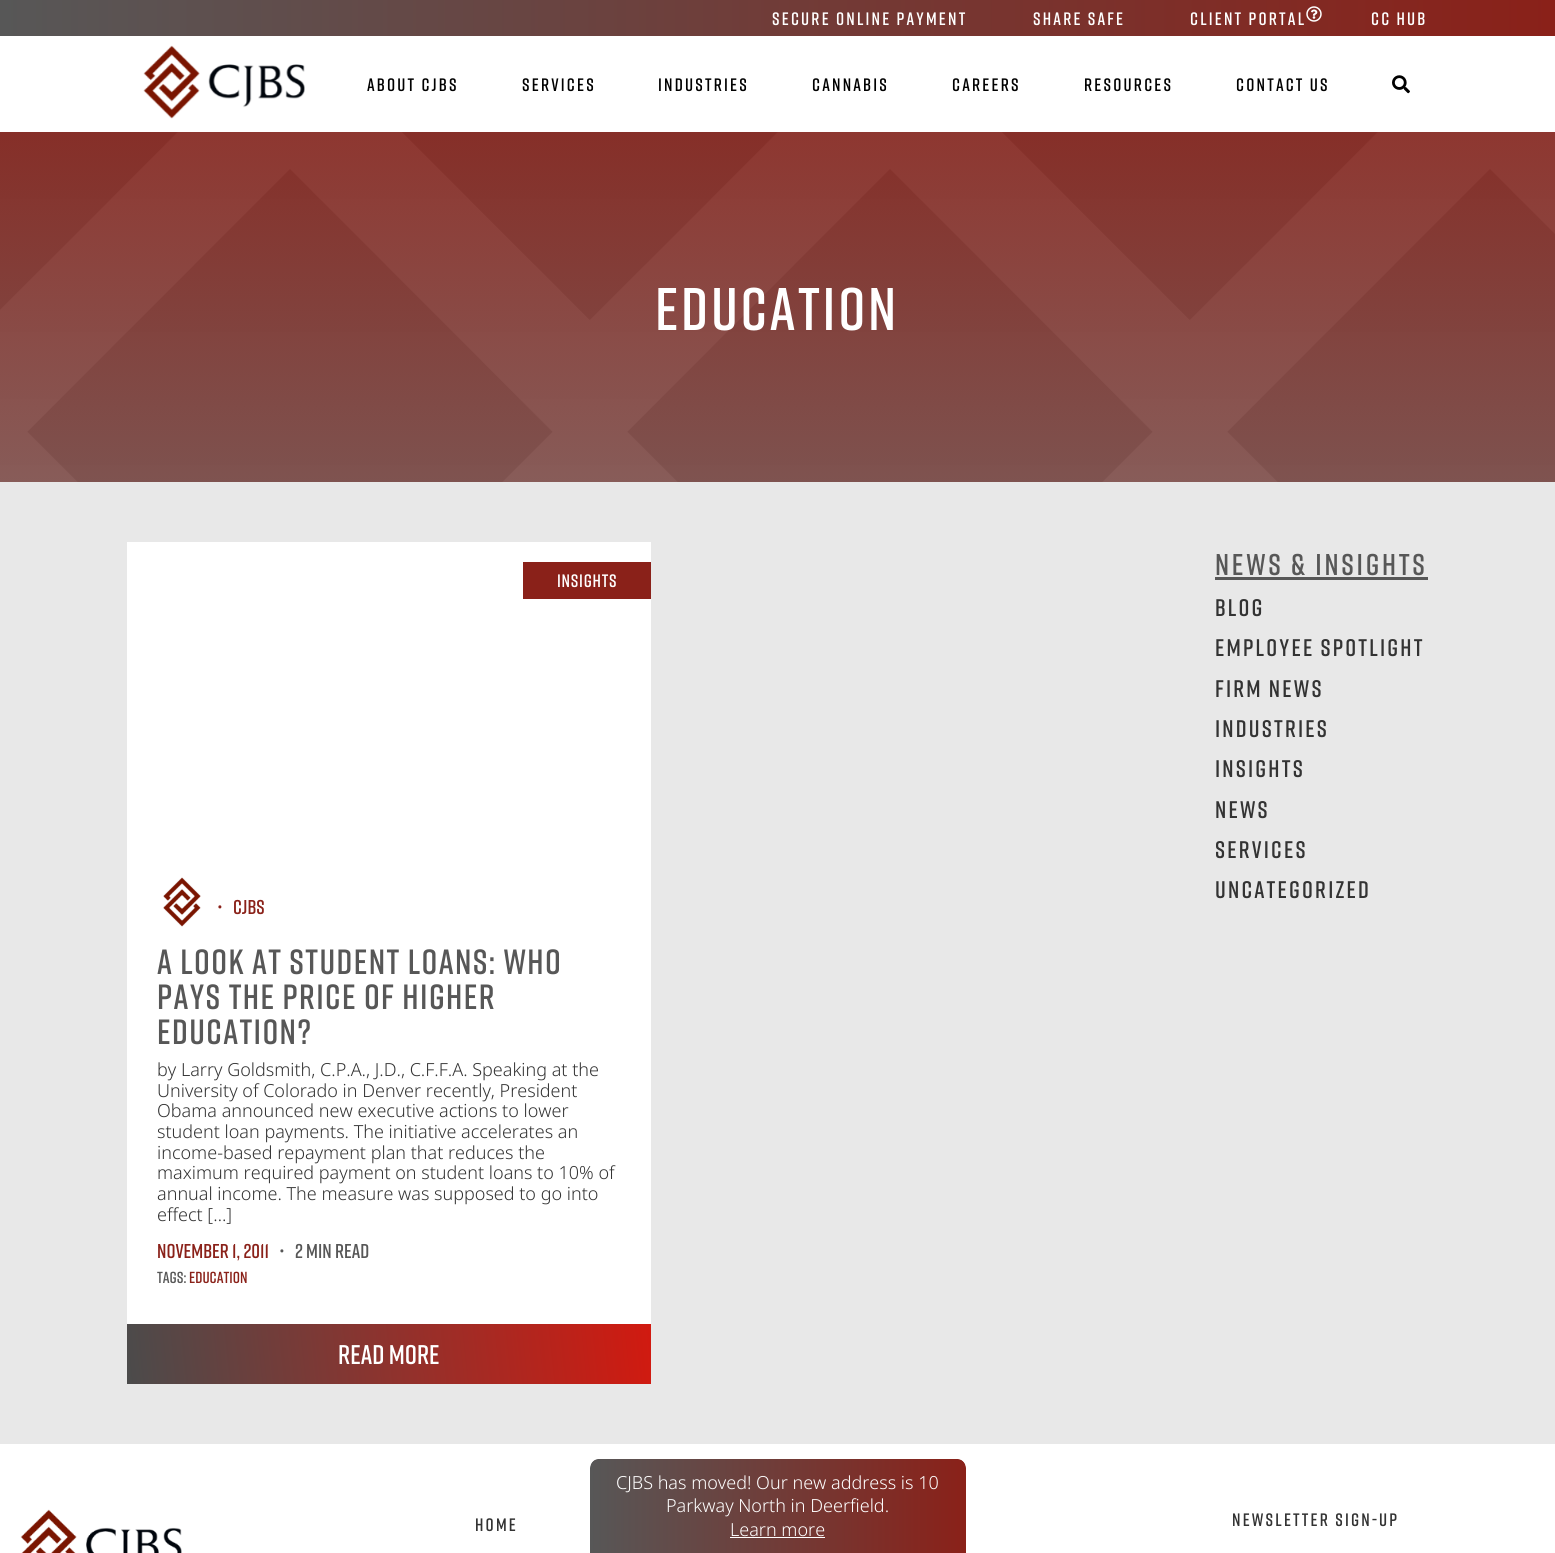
import math
import cairo

surface = cairo.ImageSurface(cairo.FORMAT_RGB24, 1555, 1553)
cr = cairo.Context(surface)
options = cairo.FontOptions()
options.set_hint_metrics(cairo.HINT_METRICS_OFF)
options.set_hint_style(cairo.HINT_STYLE_NONE)
cr.set_font_options(options)
cr.set_miter_limit(4)


def rgb(code):
    cr.set_source_rgb(*(v / 255 for v in bytes.fromhex(code[-6:])))


def tracked(x, y, s, letter, word):
    cr.move_to(x, y)
    for ch in s:
        cr.show_text(ch)
        cr.rel_move_to(letter + word * (ch == ' '), 0)


def image(path, x, y, w, h):
    cr.save()
    cr.set_source_surface(cairo.ImageSurface.create_from_png(path), x, y)
    cr.rectangle(x, y, w, h)
    cr.fill()
    cr.restore()


rgb("#e8e8e8")
cr.paint()
rgb("#ffffff")
cr.rectangle(0, 36, 1555, 96)
cr.fill()
gradient = cairo.LinearGradient(1555, 18, 0, 18)
gradient.add_color_stop_rgba(0, 0.541, 0.129, 0.098, 1)
gradient.add_color_stop_rgba(1, 0.341, 0.341, 0.341, 1)
cr.set_source(gradient)
cr.rectangle(0, 0, 1555, 36)
cr.fill()
image("img/1.png", 1306, 6, 16, 16)
image("img/2.png", 143, 45, 162, 74)
image("img/3.png", 1392, 75, 18, 19)
image("img/4.png", 0, 132, 1555, 350)
rgb("#ffffff")
cr.rectangle(127, 542, 524, 782)
cr.fill()
rgb("#8a2119")
cr.rectangle(523, 562, 128, 37)
cr.fill()
image("img/5.png", 163, 877, 38, 50)
gradient = cairo.LinearGradient(127, 1382, 651, 1326)
gradient.add_color_stop_rgba(0, 0.294, 0.294, 0.294, 1)
gradient.add_color_stop_rgba(1, 0.82, 0.102, 0.063, 1)
cr.set_source(gradient)
cr.rectangle(127, 1324, 524, 60)
cr.fill()
rgb("#575757")
cr.rectangle(1215, 577, 213, 3)
cr.fill()
rgb("#ffffff")
cr.rectangle(0, 1444, 1555, 109)
cr.fill()
image("img/6.png", 20, 1509, 162, 44)
gradient = cairo.LinearGradient(966, 1506, 590, 1506)
gradient.add_color_stop_rgba(0, 0.541, 0.129, 0.098, 1)
gradient.add_color_stop_rgba(1, 0.341, 0.341, 0.341, 1)
cr.set_source(gradient)
cr.new_path()
cr.move_to(598, 1459)
cr.line_to(958, 1459)
cr.curve_to(962, 1459, 966, 1463, 966, 1468)
cr.line_to(966, 1553)
cr.line_to(590, 1553)
cr.line_to(590, 1468)
cr.curve_to(590, 1463, 594, 1459, 598, 1459)
cr.close_path()
cr.fill()
rgb("#ffffff")
cr.set_fill_rule(cairo.FILL_RULE_EVEN_ODD)
cr.new_path()
cr.move_to(598, 1458)
cr.line_to(958, 1458)
cr.curve_to(964, 1458, 968, 1462, 968, 1468)
cr.line_to(968, 1553)
cr.line_to(588, 1553)
cr.line_to(588, 1468)
cr.curve_to(588, 1462, 592, 1458, 598, 1458)
cr.close_path()
cr.move_to(598, 1459)
cr.line_to(958, 1459)
cr.curve_to(962, 1459, 966, 1463, 966, 1468)
cr.line_to(966, 1553)
cr.line_to(590, 1553)
cr.line_to(590, 1468)
cr.curve_to(590, 1463, 594, 1459, 598, 1459)
cr.close_path()
cr.fill()
cr.rectangle(730, 1537, 95, 1)
cr.fill()
cr.select_font_face("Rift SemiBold")
cr.set_font_size(18)
for x, y, s in [
    (772, 25, "Secure Online Payment"),
    (1033, 25, "Share Safe"),
    (1190, 25, "Client Portal"),
    (1371, 25, "CC HUB"),
]:
    tracked(x, y, s, 2.2, 0)
rgb("#000000")
for x, y, s in [
    (367, 91, "About CJBS"),
    (522, 91, "Services"),
    (658, 91, "Industries"),
    (812, 91, "Cannabis"),
    (952, 91, "Careers"),
    (1084, 91, "Resources"),
    (1236, 91, "Contact Us"),
]:
    tracked(x, y, s, 2.2, 0)
cr.set_font_size(60)
rgb("#ffffff")
tracked(655, 330, "Education", 2.75, 0)
cr.set_font_size(18)
tracked(557, 587, "Insights", 0.75, 0)
cr.set_font_size(20)
rgb("#8a2119")
cr.move_to(217, 914)
cr.show_text("•")
cr.move_to(233, 914)
cr.show_text("CJBS")
cr.set_font_size(35)
rgb("#575757")
for x, y, s in [
    (157, 974, "A Look at Student Loans: Who"),
    (157, 1009, "Pays the Price of Higher"),
    (157, 1044, "Education?"),
]:
    tracked(x, y, s, 1.4, 0)
cr.select_font_face("Noto Sans Light")
cr.set_font_size(18)
rgb("#333333")
for x, y, s in [
    (157, 1076, "by Larry Goldsmith, C.P.A., J.D., C.F.F.A. Speaking at the"),
    (157, 1097, "University of Colorado in Denver recently, President"),
    (157, 1117, "Obama announced new executive actions to lower"),
    (157, 1138, "student loan payments. The initiative accelerates an"),
    (157, 1159, "income-based repayment plan that reduces the"),
    (157, 1179, "maximum required payment on student loans to 10% of"),
    (157, 1200, "annual income. The measure was supposed to go into"),
    (157, 1221, "effect […]"),
]:
    cr.move_to(x, y)
    cr.show_text(s)
cr.select_font_face("Rift SemiBold")
cr.set_font_size(20)
rgb("#8a2119")
cr.move_to(157, 1258)
cr.show_text("November 1, 2011")
rgb("#575757")
cr.move_to(279, 1258)
cr.show_text("•")
cr.move_to(295, 1258)
cr.show_text("2 MIN READ")
cr.set_font_size(16)
cr.move_to(157, 1283)
cr.show_text("Tags:")
rgb("#8a2119")
cr.move_to(189, 1283)
cr.show_text("Education")
cr.set_font_size(27)
rgb("#ffffff")
cr.move_to(338, 1364)
cr.show_text("Read More")
cr.set_font_size(30)
rgb("#575757")
tracked(1215, 575, "News & Insights", 2.75, 0)
cr.set_font_size(24)
rgb("#333333")
for x, y, s in [
    (1215, 616, "Blog"),
    (1215, 656, "Employee Spotlight"),
    (1215, 697, "Firm News"),
    (1215, 737, "Industries"),
    (1215, 777, "Insights"),
    (1215, 818, "News"),
    (1215, 858, "Services"),
    (1215, 898, "Uncategorized"),
]:
    tracked(x, y, s, 2.2, 0)
cr.set_font_size(18)
tracked(475, 1531, "Home", 2.2, 0)
tracked(1232, 1526, "NEWSLETTER SIGN-UP", 2.2, 0)
cr.select_font_face("Noto Sans Light")
rgb("#ffffff")
for x, y, s in [
    (616, 1489, "CJBS has moved! Our new address is 10"),
    (666, 1512, "Parkway North in Deerfield."),
    (730, 1536, "Learn more"),
]:
    cr.move_to(x, y)
    cr.show_text(s)
surface.write_to_png("page.png")
